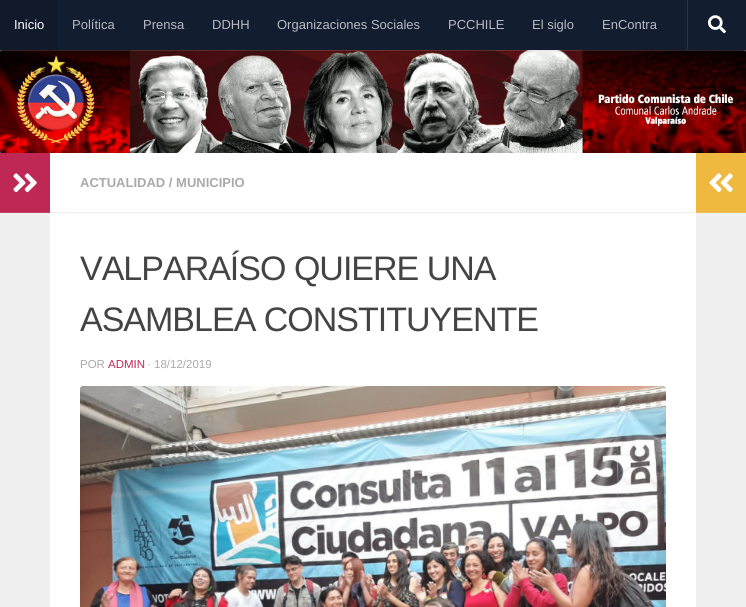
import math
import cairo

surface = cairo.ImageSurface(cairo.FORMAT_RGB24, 746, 607)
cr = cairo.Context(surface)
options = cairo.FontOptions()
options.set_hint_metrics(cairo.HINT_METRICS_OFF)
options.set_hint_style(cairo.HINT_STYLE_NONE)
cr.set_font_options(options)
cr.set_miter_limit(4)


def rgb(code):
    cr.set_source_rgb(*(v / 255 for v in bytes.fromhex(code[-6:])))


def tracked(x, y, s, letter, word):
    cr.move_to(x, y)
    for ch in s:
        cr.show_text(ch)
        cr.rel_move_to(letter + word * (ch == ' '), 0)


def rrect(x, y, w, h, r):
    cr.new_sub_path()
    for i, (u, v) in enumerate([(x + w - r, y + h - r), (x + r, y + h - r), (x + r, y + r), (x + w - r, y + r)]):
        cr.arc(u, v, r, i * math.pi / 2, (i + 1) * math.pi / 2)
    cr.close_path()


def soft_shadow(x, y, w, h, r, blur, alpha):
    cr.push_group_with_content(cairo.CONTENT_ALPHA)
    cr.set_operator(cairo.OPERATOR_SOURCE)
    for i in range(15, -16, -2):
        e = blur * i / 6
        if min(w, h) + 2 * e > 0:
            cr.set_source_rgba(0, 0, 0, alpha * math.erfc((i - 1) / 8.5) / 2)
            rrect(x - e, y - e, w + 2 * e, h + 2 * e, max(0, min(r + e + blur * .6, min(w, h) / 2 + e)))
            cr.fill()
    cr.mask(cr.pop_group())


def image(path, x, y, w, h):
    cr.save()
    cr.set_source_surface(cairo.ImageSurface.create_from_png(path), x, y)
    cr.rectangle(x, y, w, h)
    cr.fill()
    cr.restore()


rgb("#454e5c")
cr.paint()
image("img/2.png", 0, 50, 746, 103)
cr.set_source_rgba(1, 1, 1, 0.15)
cr.rectangle(0, 50, 746, 1)
cr.fill()
rgb("#000000")
soft_shadow(0, 0, 746, 50, 0, 2.5, 0.2)
for x, y, w, h, color in [
    (58, 0, 688, 50, "#121d30"),
    (0, 0, 58, 50, "#101a2b"),
    (687, 0, 1, 50, "#2a3445"),
]:
    rgb(color)
    cr.rectangle(x, y, w, h)
    cr.fill()
image("img/1.png", 708, 15, 18, 19)
for x, y, w, h, color in [
    (50, 153, 646, 454, "#ffffff"),
    (0, 213, 50, 394, "#f0f0f0"),
    (0, 153, 50, 59, "#bf2855"),
    (0, 212, 50, 1, "#c53e66"),
]:
    rgb(color)
    cr.rectangle(x, y, w, h)
    cr.fill()
image("img/3.png", 13, 173, 24, 20)
rgb("#eeeeee")
cr.rectangle(50, 212, 646, 1)
cr.fill()
image("img/4.png", 80, 386, 586, 221)
rgb("#efb93f")
cr.rectangle(696, 153, 50, 59)
cr.fill()
rgb("#f1c052")
cr.rectangle(696, 212, 50, 1)
cr.fill()
image("img/5.png", 709, 173, 24, 20)
rgb("#f0f0f0")
cr.rectangle(696, 213, 50, 394)
cr.fill()
cr.select_font_face("Liberation Sans")
cr.set_font_size(13)
rgb("#ffffff")
cr.move_to(14, 29)
cr.show_text("Inicio")
rgb("#b8bbc1")
for x, y, s in [
    (72, 29, "Política"),
    (143, 29, "Prensa"),
    (212, 29, "DDHH"),
    (277, 29, "Organizaciones Sociales"),
    (448, 29, "PCCHILE"),
    (532, 29, "El siglo"),
    (602, 29, "EnContra"),
]:
    cr.move_to(x, y)
    cr.show_text(s)
cr.select_font_face("Liberation Sans", cairo.FONT_SLANT_NORMAL, cairo.FONT_WEIGHT_BOLD)
rgb("#aaaaaa")
cr.move_to(80, 187)
cr.show_text("ACTUALIDAD / MUNICIPIO")
cr.select_font_face("Liberation Sans")
cr.set_font_size(34)
rgb("#444444")
tracked(80, 280, "VALPARAÍSO QUIERE UNA", -1, 0)
tracked(80, 331, "ASAMBLEA CONSTITUYENTE", -1, 0)
cr.set_font_size(11.5)
rgb("#aaaaaa")
cr.move_to(80, 368)
cr.show_text("POR")
rgb("#bf2855")
cr.move_to(108, 368)
cr.show_text("ADMIN")
rgb("#aaaaaa")
cr.move_to(147, 368)
cr.show_text("· 18/12/2019")
surface.write_to_png("page.png")
